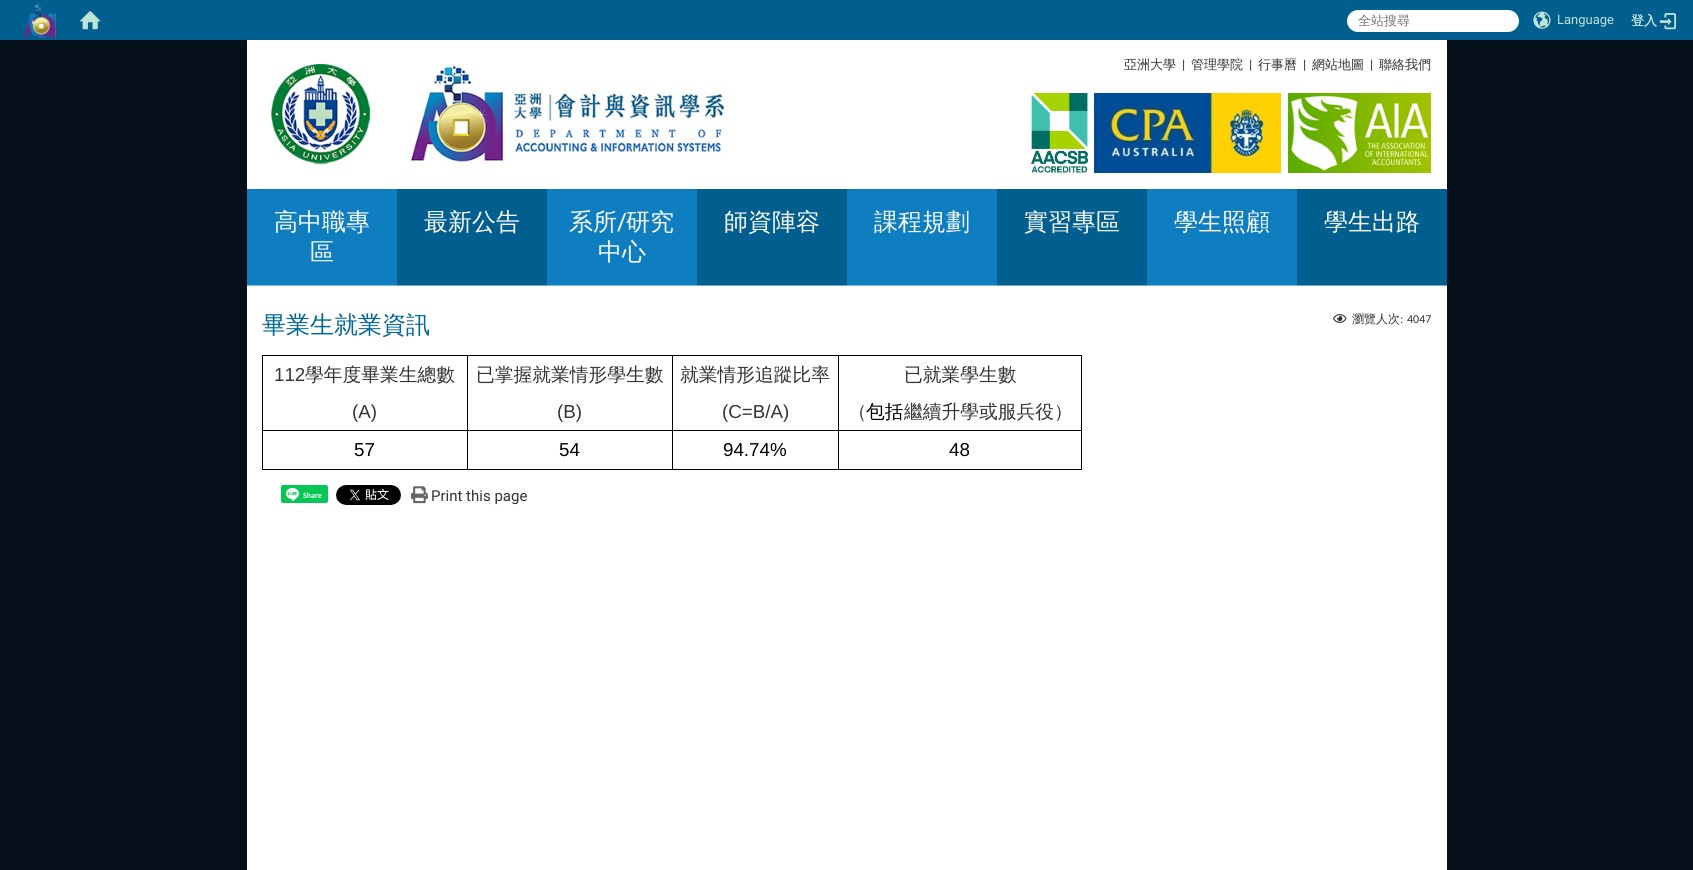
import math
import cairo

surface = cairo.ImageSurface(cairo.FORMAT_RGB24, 1693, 870)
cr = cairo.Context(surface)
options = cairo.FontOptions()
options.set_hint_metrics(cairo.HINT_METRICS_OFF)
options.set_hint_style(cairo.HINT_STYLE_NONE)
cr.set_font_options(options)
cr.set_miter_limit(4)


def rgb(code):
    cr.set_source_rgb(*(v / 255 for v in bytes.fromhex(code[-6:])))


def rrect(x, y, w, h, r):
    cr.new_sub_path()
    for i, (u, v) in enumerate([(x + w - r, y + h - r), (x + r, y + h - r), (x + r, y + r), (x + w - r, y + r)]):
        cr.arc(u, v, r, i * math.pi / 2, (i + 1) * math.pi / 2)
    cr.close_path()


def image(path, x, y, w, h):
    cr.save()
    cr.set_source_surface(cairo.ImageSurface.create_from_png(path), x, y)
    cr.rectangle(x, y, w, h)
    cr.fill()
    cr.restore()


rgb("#05101a")
cr.paint()
rgb("#005f8e")
cr.rectangle(0, 0, 1693, 40)
cr.fill()
image("img/1.png", 24, 4, 32, 34)
image("img/2.png", 80, 11, 21, 19)
rgb("#ffffff")
rrect(1347, 10, 172, 22, 11)
cr.fill()
image("img/3.png", 1533, 11, 18, 18)
image("img/4.png", 1659, 13, 18, 17)
cr.rectangle(247, 40, 1200, 830)
cr.fill()
image("img/5.png", 271, 64, 100, 100)
image("img/6.png", 411, 64, 314, 98)
image("img/7.png", 1031, 93, 57, 80)
image("img/8.png", 1094, 93, 187, 80)
image("img/9.png", 1288, 93, 143, 80)
for x, y, w, h, color in [
    (247, 189, 1050, 96, "#0e7ec0"),
    (247, 285, 150, 1, "#7ab8dc"),
    (397, 189, 150, 96, "#005f8e"),
    (397, 285, 150, 1, "#73a7c1"),
    (547, 285, 150, 1, "#7ab8dc"),
    (697, 189, 150, 96, "#005f8e"),
    (697, 285, 150, 1, "#73a7c1"),
    (847, 285, 150, 1, "#7ab8dc"),
    (997, 189, 150, 96, "#005f8e"),
    (997, 285, 150, 1, "#73a7c1"),
    (1147, 285, 150, 1, "#7ab8dc"),
    (1297, 189, 150, 96, "#005f8e"),
    (1297, 285, 150, 1, "#73a7c1"),
]:
    rgb(color)
    cr.rectangle(x, y, w, h)
    cr.fill()
image("img/10.png", 1333, 314, 14, 9)
for x, y, w, h, color in [
    (262, 355, 820, 1, "#000000"),
    (1081, 430, 1, 40, "#000000"),
    (1081, 355, 1, 76, "#000000"),
    (838, 469, 244, 1, "#000000"),
    (838, 430, 1, 40, "#000000"),
    (838, 430, 244, 1, "#000000"),
    (838, 355, 1, 76, "#000000"),
    (672, 469, 167, 1, "#000000"),
    (672, 430, 1, 40, "#000000"),
    (672, 430, 167, 1, "#000000"),
    (672, 355, 1, 76, "#000000"),
    (467, 469, 206, 1, "#000000"),
    (467, 430, 1, 40, "#000000"),
    (467, 430, 206, 1, "#000000"),
    (467, 355, 1, 76, "#000000"),
    (262, 469, 206, 1, "#000000"),
    (262, 430, 1, 40, "#000000"),
    (262, 430, 206, 1, "#000000"),
    (262, 355, 1, 76, "#000000"),
]:
    rgb(color)
    cr.rectangle(x, y, w, h)
    cr.fill()
rgb("#06c755")
rrect(281, 485, 47, 18, 2)
cr.fill()
image("img/11.png", 286, 488, 13, 13)
image("img/12.png", 336, 485, 65, 20)
image("img/13.png", 411, 486, 17, 18)
cr.select_font_face("WenQuanYi Zen Hei Medium")
cr.set_font_size(13)
rgb("#757575")
cr.move_to(1358, 25)
cr.show_text("全站搜尋")
cr.select_font_face("Roboto")
rgb("#bee4d9")
cr.move_to(1557, 24)
cr.show_text("Language")
cr.select_font_face("WenQuanYi Zen Hei", cairo.FONT_SLANT_NORMAL, cairo.FONT_WEIGHT_BOLD)
cr.move_to(1631, 25)
cr.show_text("登入")
cr.select_font_face("WenQuanYi Zen Hei Medium")
rgb("#333333")
cr.move_to(1124, 69)
cr.show_text("亞洲大學")
cr.select_font_face("Roboto")
cr.move_to(1182, 69)
cr.show_text("|")
cr.select_font_face("WenQuanYi Zen Hei Medium")
cr.move_to(1191, 69)
cr.show_text("管理學院")
cr.select_font_face("Roboto")
cr.move_to(1249, 69)
cr.show_text("|")
cr.select_font_face("WenQuanYi Zen Hei Medium")
cr.move_to(1258, 69)
cr.show_text("行事曆")
cr.select_font_face("Roboto")
cr.move_to(1303, 69)
cr.show_text("|")
cr.select_font_face("WenQuanYi Zen Hei Medium")
cr.move_to(1312, 69)
cr.show_text("網站地圖")
cr.select_font_face("Roboto")
cr.move_to(1370, 69)
cr.show_text("|")
cr.select_font_face("WenQuanYi Zen Hei Medium")
cr.move_to(1379, 69)
cr.show_text("聯絡我們")
cr.select_font_face("Roboto")
rgb("#a6a6a6")
cr.move_to(1422, 69)
cr.show_text("::")
cr.select_font_face("WenQuanYi Zen Hei Medium")
cr.set_font_size(24)
rgb("#ffffff")
for x, y, s in [
    (274, 230, "高中職專"),
    (310, 260, "區"),
    (424, 230, "最新公告"),
    (569, 230, "系所"),
]:
    cr.move_to(x, y)
    cr.show_text(s)
cr.select_font_face("Roboto")
cr.move_to(617, 230)
cr.show_text("/")
cr.select_font_face("WenQuanYi Zen Hei Medium")
for x, y, s in [
    (626, 230, "研究"),
    (598, 260, "中心"),
    (724, 230, "師資陣容"),
    (874, 230, "課程規劃"),
    (1024, 230, "實習專區"),
    (1174, 230, "學生照顧"),
    (1324, 230, "學生出路"),
]:
    cr.move_to(x, y)
    cr.show_text(s)
rgb("#006699")
cr.move_to(262, 333)
cr.show_text("畢業生就業資訊")
cr.set_font_size(12)
rgb("#333333")
cr.move_to(1352, 323)
cr.show_text("瀏覽人次")
cr.select_font_face("Liberation Serif")
cr.move_to(1400, 323)
cr.show_text(":")
cr.select_font_face("Carlito")
cr.move_to(1407, 323)
cr.show_text("4047")
cr.select_font_face("Liberation Sans")
cr.set_font_size(18.75)
cr.move_to(274, 381)
cr.show_text("112")
cr.select_font_face("WenQuanYi Zen Hei Medium")
cr.move_to(305, 381)
cr.show_text("學年度畢業生總數")
cr.select_font_face("Liberation Sans")
cr.move_to(352, 418)
cr.show_text("(A)")
cr.select_font_face("WenQuanYi Zen Hei Medium")
cr.move_to(476, 381)
cr.show_text("已掌握就業情形學生數")
cr.select_font_face("Liberation Sans")
cr.move_to(557, 418)
cr.show_text("(B)")
cr.select_font_face("WenQuanYi Zen Hei Medium")
cr.move_to(680, 381)
cr.show_text("就業情形追蹤比率")
cr.select_font_face("Liberation Sans")
cr.move_to(722, 418)
cr.show_text("(C=B/A)")
cr.select_font_face("WenQuanYi Zen Hei Medium")
cr.move_to(904, 381)
cr.show_text("已就業學生數")
cr.move_to(848, 418)
cr.show_text("（")
rgb("#000000")
cr.move_to(866, 418)
cr.show_text("包括")
rgb("#333333")
cr.move_to(904, 418)
cr.show_text("繼續升學或服兵役）")
cr.select_font_face("Liberation Sans")
rgb("#000000")
for x, y, s in [
    (354, 456, "57"),
    (559, 456, "54"),
    (723, 456, "94.74%"),
    (949, 456, "48"),
]:
    cr.move_to(x, y)
    cr.show_text(s)
cr.select_font_face("Carlito", cairo.FONT_SLANT_NORMAL, cairo.FONT_WEIGHT_BOLD)
cr.set_font_size(8)
rgb("#ffffff")
cr.move_to(303, 498)
cr.show_text("Share")
cr.select_font_face("Roboto")
cr.set_font_size(15)
rgb("#333333")
cr.move_to(431, 501)
cr.show_text("Print this page")
surface.write_to_png("page.png")
